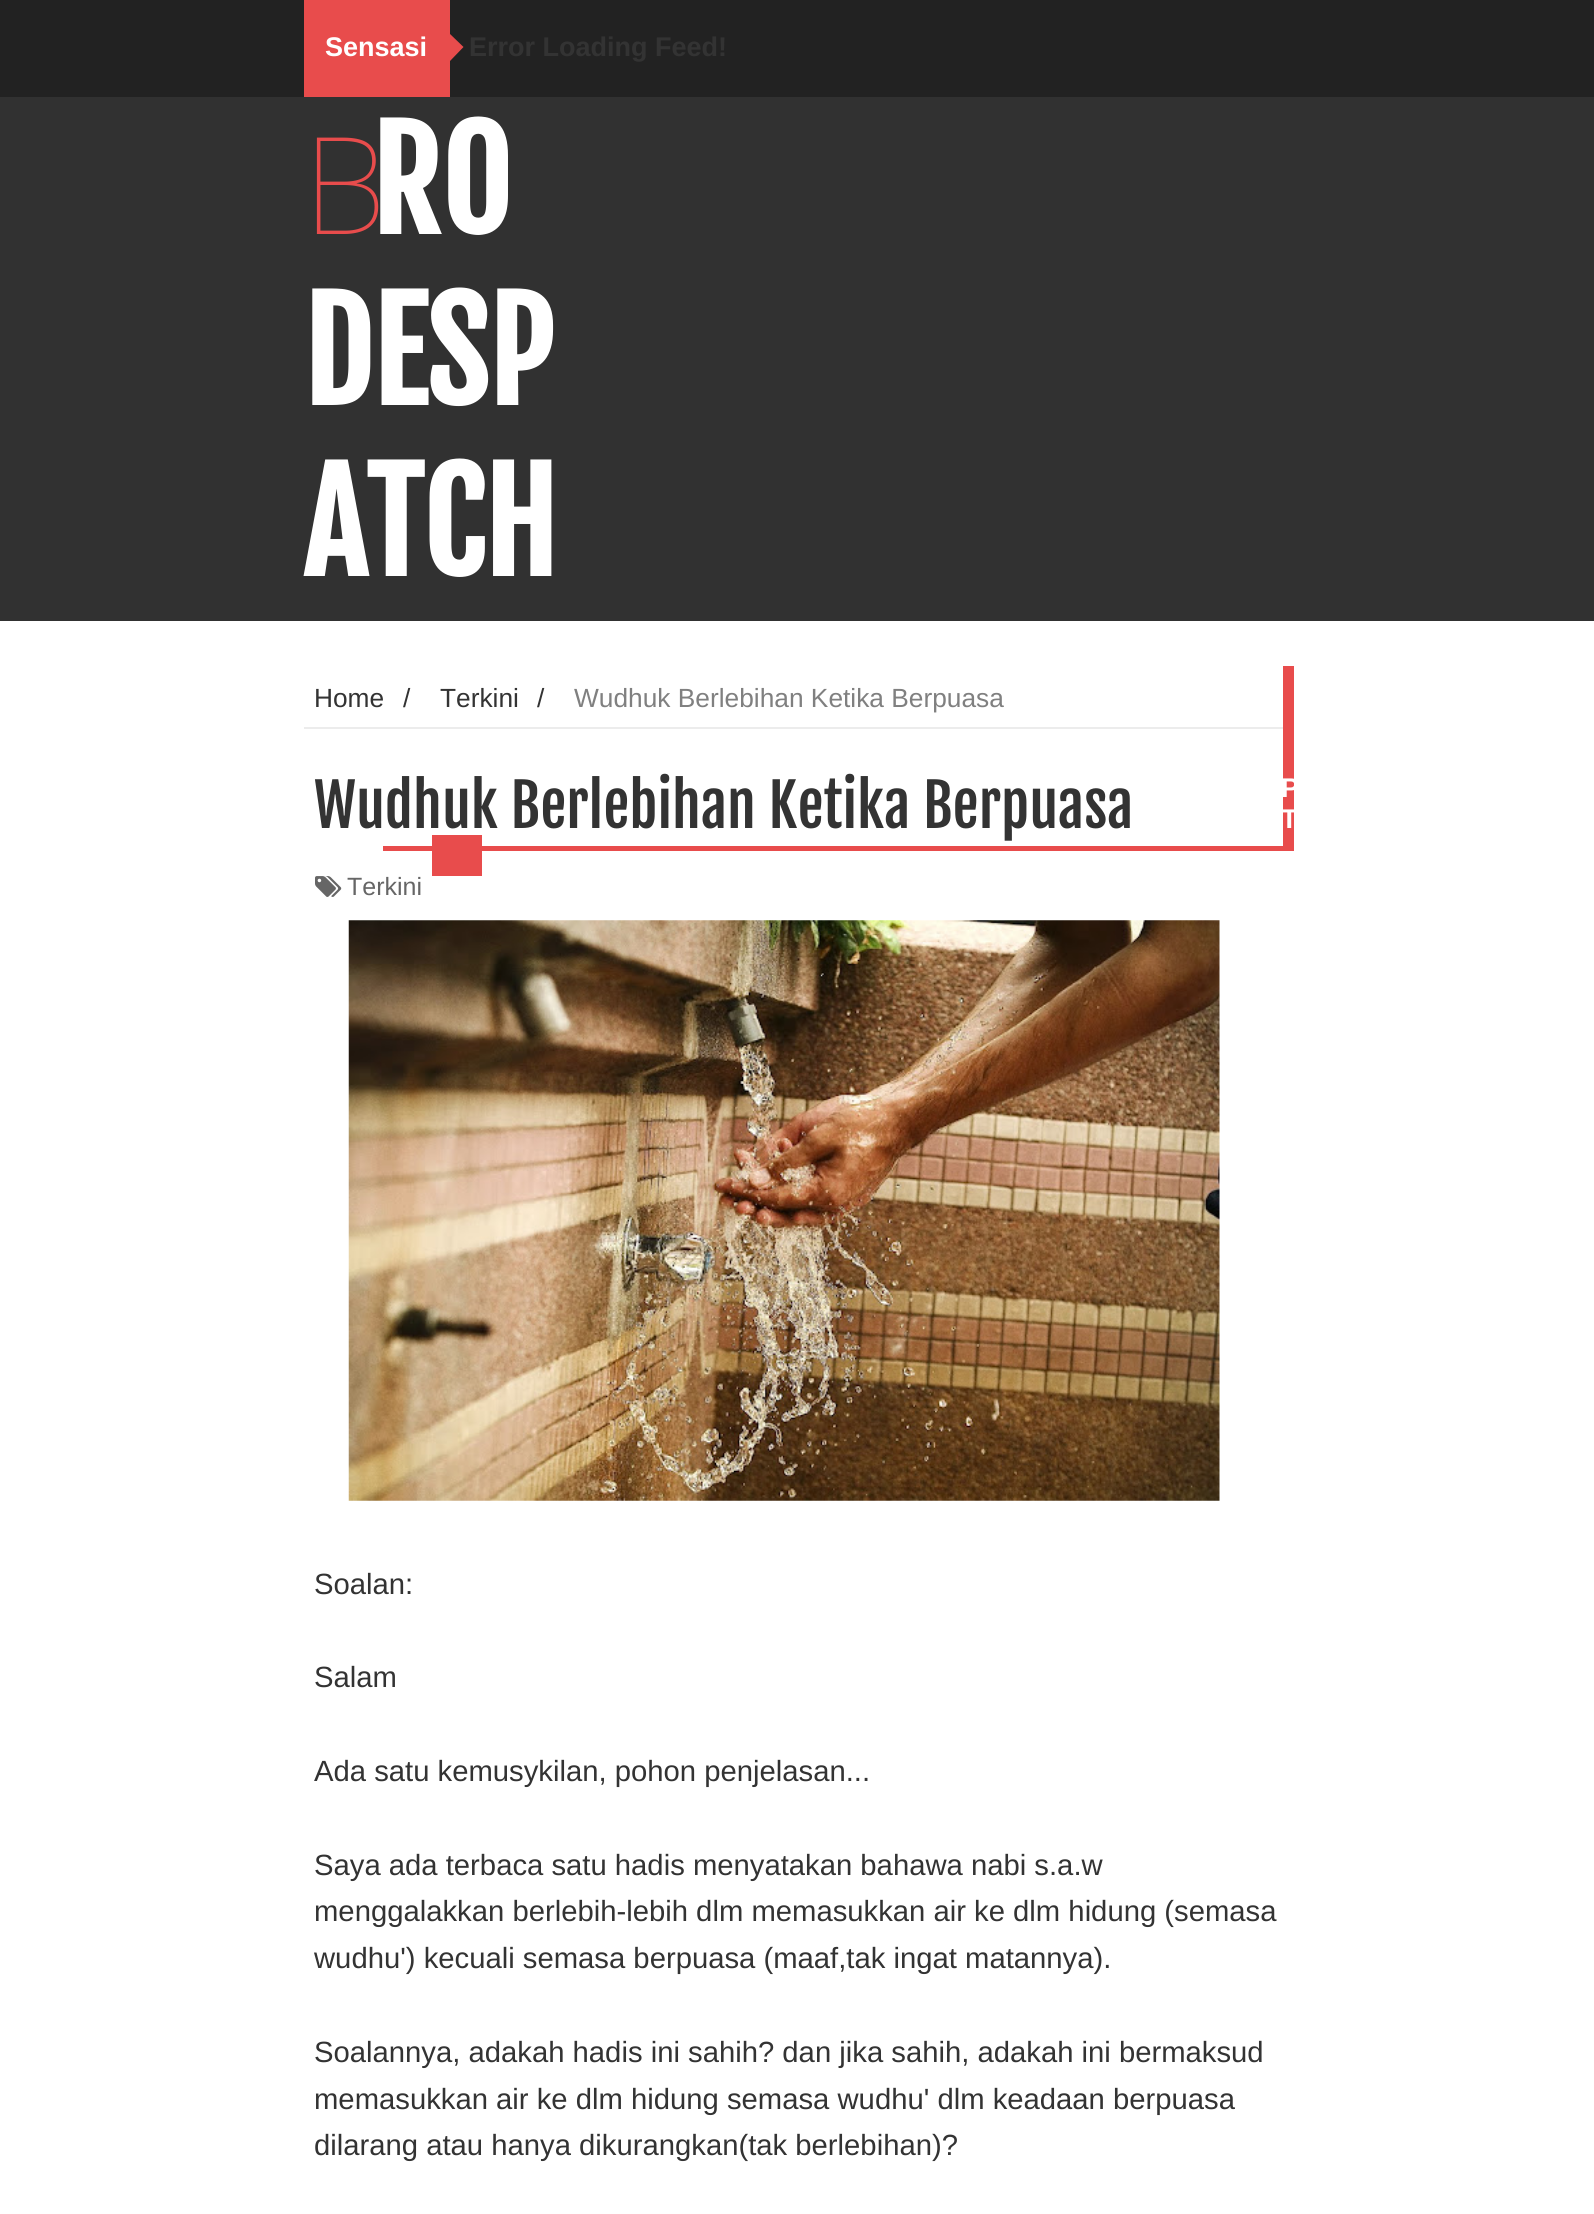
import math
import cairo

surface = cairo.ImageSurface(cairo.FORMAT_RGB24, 1594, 2214)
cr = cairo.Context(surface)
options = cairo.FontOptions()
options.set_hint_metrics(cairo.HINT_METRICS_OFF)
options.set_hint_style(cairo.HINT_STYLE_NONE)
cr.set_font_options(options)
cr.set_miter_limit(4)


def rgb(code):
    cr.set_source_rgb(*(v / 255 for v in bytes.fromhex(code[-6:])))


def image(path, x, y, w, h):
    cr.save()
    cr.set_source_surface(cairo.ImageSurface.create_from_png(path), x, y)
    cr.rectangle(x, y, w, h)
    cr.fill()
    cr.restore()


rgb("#ffffff")
cr.paint()
rgb("#222222")
cr.rectangle(0, 0, 1594, 97)
cr.fill()
rgb("#e84c4c")
cr.rectangle(304, 0, 146, 97)
cr.fill()
cr.new_path()
cr.move_to(450, 61)
cr.line_to(450, 34)
cr.line_to(463.5, 47)
cr.close_path()
cr.fill()
rgb("#313131")
cr.rectangle(0, 97, 1594, 524)
cr.fill()
rgb("#ececec")
cr.rectangle(304, 727, 979, 2)
cr.fill()
image("img/1.png", 315, 876, 27, 21)
image("img/2.png", 348, 920, 872, 581)
rgb("#e84c4c")
cr.rectangle(383, 846, 900, 5)
cr.fill()
cr.rectangle(1283, 666, 11, 185)
cr.fill()
cr.select_font_face("Liberation Sans", cairo.FONT_SLANT_NORMAL, cairo.FONT_WEIGHT_BOLD)
cr.set_font_size(27)
rgb("#ffffff")
cr.move_to(325, 56)
cr.show_text("Sensasi")
rgb("#333333")
cr.move_to(469, 56)
cr.show_text("Error Loading Feed!")
cr.select_font_face("Noto Sans Thin")
cr.set_font_size(135)
rgb("#e84c4c")
cr.move_to(303, 234)
cr.show_text("B")
cr.select_font_face("Fjalla One", cairo.FONT_SLANT_NORMAL, cairo.FONT_WEIGHT_BOLD)
rgb("#ffffff")
for x, y, s in [
    (371, 234, "RO"),
    (303, 405, "DESP"),
    (303, 576, "ATCH"),
]:
    cr.move_to(x, y)
    cr.show_text(s)
cr.select_font_face("Liberation Sans")
cr.set_font_size(26.3)
rgb("#333333")
for x, y, s in [
    (314, 707, "Home"),
    (403, 707, "/"),
    (440, 707, "Terkini"),
    (537, 707, "/"),
]:
    cr.move_to(x, y)
    cr.show_text(s)
rgb("#808080")
cr.move_to(574, 707)
cr.show_text("Wudhuk Berlebihan Ketika Berpuasa")
cr.select_font_face("Fjalla One")
cr.set_font_size(58.5)
rgb("#333333")
cr.move_to(314, 828)
cr.show_text("Wudhuk Berlebihan Ketika Berpuasa")
cr.select_font_face("Liberation Sans")
cr.set_font_size(25)
rgb("#666666")
cr.move_to(347, 895)
cr.show_text("Terkini")
cr.set_font_size(29.25)
rgb("#333333")
for x, y, s in [
    (314, 1594, "Soalan:"),
    (314, 1687, "Salam"),
    (314, 1781, "Ada satu kemusykilan, pohon penjelasan..."),
    (314, 1875, "Saya ada terbaca satu hadis menyatakan bahawa nabi s.a.w"),
    (314, 1921, "menggalakkan berlebih-lebih dlm memasukkan air ke dlm hidung (semasa"),
    (314, 1968, "wudhu') kecuali semasa berpuasa (maaf,tak ingat matannya)."),
    (314, 2062, "Soalannya, adakah hadis ini sahih? dan jika sahih, adakah ini bermaksud"),
    (314, 2109, "memasukkan air ke dlm hidung semasa wudhu' dlm keadaan berpuasa"),
    (314, 2155, "dilarang atau hanya dikurangkan(tak berlebihan)?"),
]:
    cr.move_to(x, y)
    cr.show_text(s)
cr.save()
cr.rectangle(304, 621, 990, 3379)
cr.clip()
cr.select_font_face("Liberation Sans", cairo.FONT_SLANT_NORMAL, cairo.FONT_WEIGHT_BOLD)
cr.set_font_size(27)
rgb("#ffffff")
cr.move_to(1281, 797)
cr.show_text("P")
cr.move_to(1281, 828)
cr.show_text("T")
cr.restore()
rgb("#e84c4c")
cr.rectangle(432, 835, 50, 41)
cr.fill()
surface.write_to_png("page.png")
